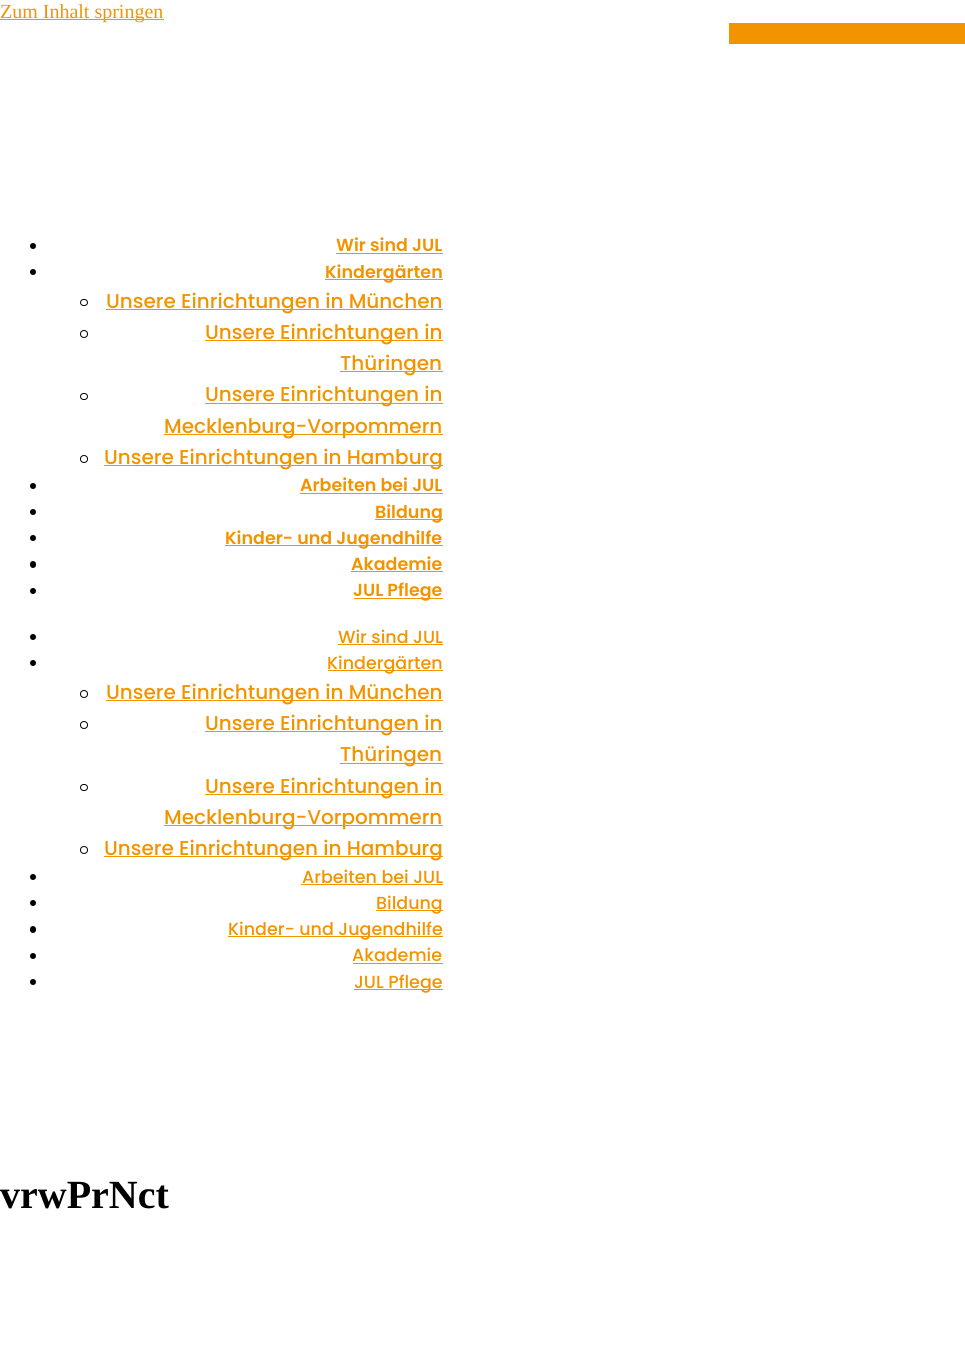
import math
import cairo

surface = cairo.ImageSurface(cairo.FORMAT_RGB24, 965, 1350)
cr = cairo.Context(surface)
options = cairo.FontOptions()
options.set_hint_metrics(cairo.HINT_METRICS_OFF)
options.set_hint_style(cairo.HINT_STYLE_NONE)
cr.set_font_options(options)
cr.set_miter_limit(4)


def rgb(code):
    cr.set_source_rgb(*(v / 255 for v in bytes.fromhex(code[-6:])))


def rrect(x, y, w, h, r):
    cr.new_sub_path()
    for i, (u, v) in enumerate([(x + w - r, y + h - r), (x + r, y + h - r), (x + r, y + r), (x + w - r, y + r)]):
        cr.arc(u, v, r, i * math.pi / 2, (i + 1) * math.pi / 2)
    cr.close_path()


rgb("#ffffff")
cr.paint()
rgb("#f29400")
cr.rectangle(0, 19, 164, 1)
cr.fill()
cr.rectangle(729, 23, 236, 21)
cr.fill()
rgb("#000000")
cr.arc(33, 246, 3, 0, 2 * math.pi)
cr.fill()
rgb("#f29400")
cr.rectangle(336, 253, 107, 1)
cr.fill()
rgb("#000000")
cr.arc(33, 272, 3, 0, 2 * math.pi)
cr.fill()
rgb("#f29400")
cr.rectangle(325, 279, 118, 1)
cr.fill()
rrect(80.5, 299.5, 7, 6, 3)
rgb("#000000")
cr.set_line_width(1)
cr.stroke()
rgb("#f29400")
cr.rectangle(106, 309, 337, 1)
cr.fill()
cr.arc(84, 334, 3.5, 0, 2 * math.pi)
rgb("#000000")
cr.stroke()
rgb("#f29400")
cr.rectangle(205, 340, 238, 1)
cr.fill()
cr.rectangle(340, 371, 103, 1)
cr.fill()
rrect(80.5, 393.5, 7, 6, 3)
rgb("#000000")
cr.stroke()
rgb("#f29400")
cr.rectangle(205, 403, 238, 1)
cr.fill()
cr.rectangle(164, 434, 279, 1)
cr.fill()
cr.arc(84, 459, 3.5, 0, 2 * math.pi)
rgb("#000000")
cr.stroke()
rgb("#f29400")
cr.rectangle(104, 465, 339, 1)
cr.fill()
rgb("#000000")
cr.arc(33, 486, 3, 0, 2 * math.pi)
cr.fill()
rgb("#f29400")
cr.rectangle(300, 493, 143, 1)
cr.fill()
rgb("#000000")
cr.arc(33, 512, 3, 0, 2 * math.pi)
cr.fill()
rgb("#f29400")
cr.rectangle(375, 519, 68, 1)
cr.fill()
rgb("#000000")
cr.arc(33, 538, 3, 0, 2 * math.pi)
cr.fill()
rgb("#f29400")
cr.rectangle(225, 545, 218, 1)
cr.fill()
rgb("#000000")
rrect(30, 561, 6, 7, 3)
cr.fill()
rgb("#f29400")
cr.rectangle(351, 571, 92, 1)
cr.fill()
rgb("#000000")
cr.arc(33, 591, 3, 0, 2 * math.pi)
cr.fill()
rgb("#f29400")
cr.rectangle(354, 598, 89, 1)
cr.fill()
rgb("#000000")
cr.arc(33, 637, 3, 0, 2 * math.pi)
cr.fill()
rgb("#f29400")
cr.rectangle(338, 644, 105, 1)
cr.fill()
rgb("#000000")
cr.arc(33, 663, 3, 0, 2 * math.pi)
cr.fill()
rgb("#f29400")
cr.rectangle(328, 670, 115, 1)
cr.fill()
cr.arc(84, 694, 3.5, 0, 2 * math.pi)
rgb("#000000")
cr.stroke()
rgb("#f29400")
cr.rectangle(106, 700, 337, 1)
cr.fill()
cr.arc(84, 725, 3.5, 0, 2 * math.pi)
rgb("#000000")
cr.stroke()
rgb("#f29400")
cr.rectangle(205, 731, 238, 1)
cr.fill()
cr.rectangle(340, 763, 103, 1)
cr.fill()
rrect(80.5, 784.5, 7, 6, 3)
rgb("#000000")
cr.stroke()
rgb("#f29400")
cr.rectangle(205, 794, 238, 1)
cr.fill()
cr.rectangle(164, 825, 279, 1)
cr.fill()
cr.arc(84, 850, 3.5, 0, 2 * math.pi)
rgb("#000000")
cr.stroke()
rgb("#f29400")
cr.rectangle(104, 856, 339, 1)
cr.fill()
rgb("#000000")
cr.arc(33, 877, 3, 0, 2 * math.pi)
cr.fill()
rgb("#f29400")
cr.rectangle(301, 884, 142, 1)
cr.fill()
rgb("#000000")
cr.arc(33, 903, 3, 0, 2 * math.pi)
cr.fill()
rgb("#f29400")
cr.rectangle(376, 910, 67, 1)
cr.fill()
rgb("#000000")
rrect(30, 926, 6, 7, 3)
cr.fill()
rgb("#f29400")
cr.rectangle(228, 936, 215, 1)
cr.fill()
rgb("#000000")
cr.arc(33, 956, 3, 0, 2 * math.pi)
cr.fill()
rgb("#f29400")
cr.rectangle(353, 963, 90, 1)
cr.fill()
rgb("#000000")
cr.arc(33, 982, 3, 0, 2 * math.pi)
cr.fill()
rgb("#f29400")
cr.rectangle(354, 989, 89, 1)
cr.fill()
cr.select_font_face("Liberation Serif")
cr.set_font_size(20)
cr.move_to(0, 18)
cr.show_text("Zum Inhalt springen")
cr.select_font_face("Poppins SemiBold")
cr.set_font_size(17.5)
cr.move_to(336, 251)
cr.show_text("Wir sind JUL")
cr.move_to(325, 278)
cr.show_text("Kindergärten")
cr.select_font_face("Poppins Medium")
cr.set_font_size(20)
for x, y, s in [
    (106, 308, "Unsere Einrichtungen in München"),
    (205, 339, "Unsere Einrichtungen in"),
    (340, 370, "Thüringen"),
    (205, 401, "Unsere Einrichtungen in"),
    (164, 433, "Mecklenburg-Vorpommern"),
    (104, 464, "Unsere Einrichtungen in Hamburg"),
]:
    cr.move_to(x, y)
    cr.show_text(s)
cr.select_font_face("Poppins SemiBold")
cr.set_font_size(17.5)
for x, y, s in [
    (300, 491, "Arbeiten bei JUL"),
    (375, 518, "Bildung"),
    (225, 544, "Kinder- und Jugendhilfe"),
    (351, 570, "Akademie"),
    (353, 596, "JUL Pflege"),
]:
    cr.move_to(x, y)
    cr.show_text(s)
cr.select_font_face("Poppins Medium")
cr.move_to(338, 643)
cr.show_text("Wir sind JUL")
cr.move_to(327, 669)
cr.show_text("Kindergärten")
cr.set_font_size(20)
for x, y, s in [
    (106, 699, "Unsere Einrichtungen in München"),
    (205, 730, "Unsere Einrichtungen in"),
    (340, 761, "Thüringen"),
    (205, 793, "Unsere Einrichtungen in"),
    (164, 824, "Mecklenburg-Vorpommern"),
    (104, 855, "Unsere Einrichtungen in Hamburg"),
]:
    cr.move_to(x, y)
    cr.show_text(s)
cr.set_font_size(17.5)
for x, y, s in [
    (302, 883, "Arbeiten bei JUL"),
    (376, 909, "Bildung"),
    (228, 935, "Kinder- und Jugendhilfe"),
    (352, 961, "Akademie"),
    (354, 988, "JUL Pflege"),
]:
    cr.move_to(x, y)
    cr.show_text(s)
cr.select_font_face("Liberation Serif", cairo.FONT_SLANT_NORMAL, cairo.FONT_WEIGHT_BOLD)
cr.set_font_size(40)
rgb("#000000")
cr.move_to(0, 1208)
cr.show_text("vrwPrNct")
surface.write_to_png("page.png")
